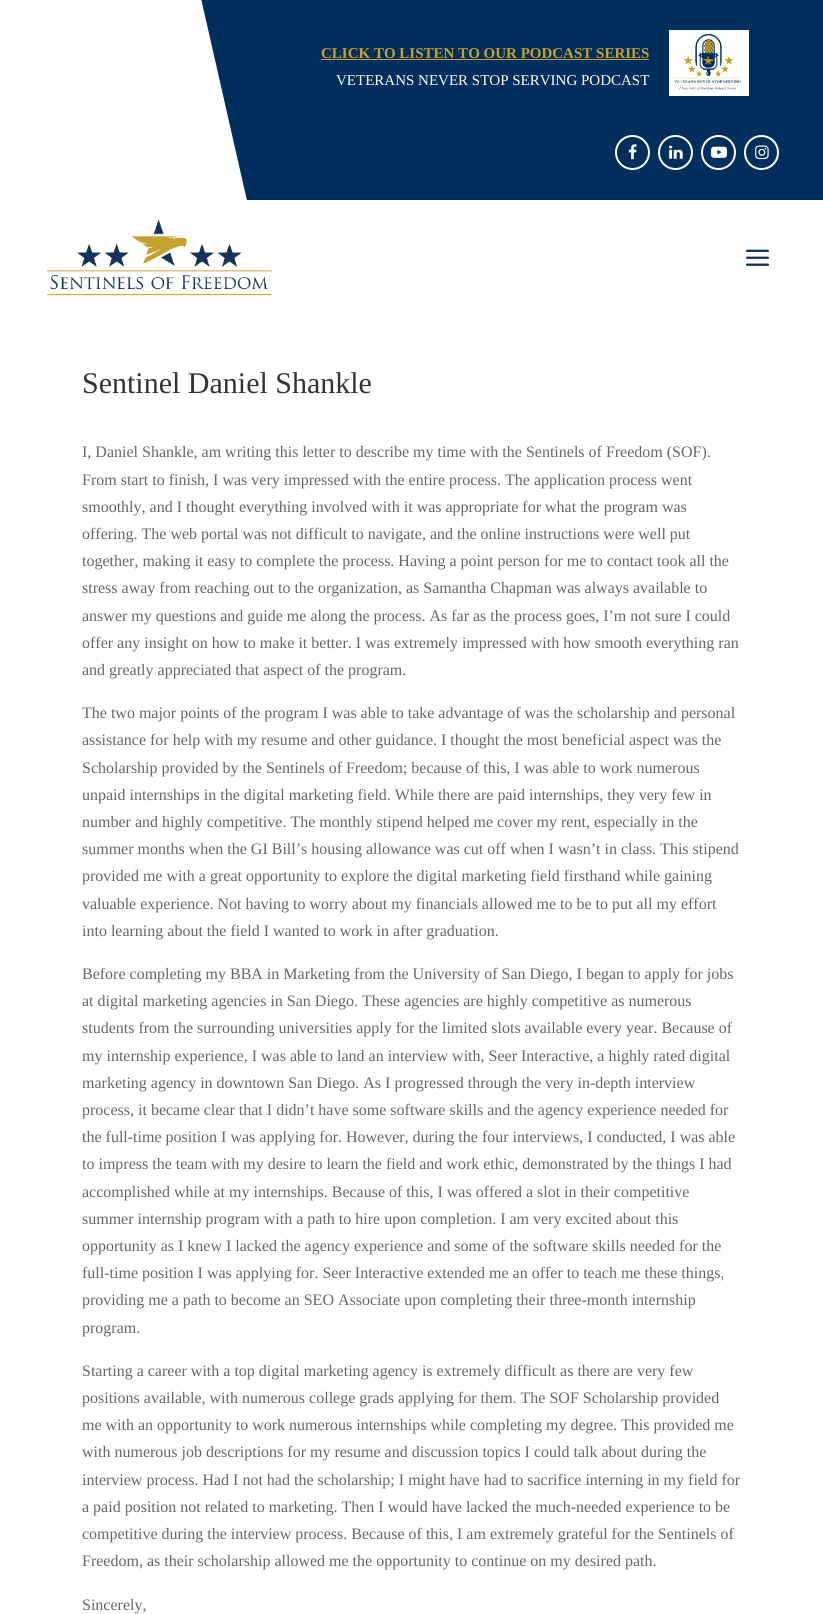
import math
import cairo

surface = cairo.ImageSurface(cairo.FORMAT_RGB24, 823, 1614)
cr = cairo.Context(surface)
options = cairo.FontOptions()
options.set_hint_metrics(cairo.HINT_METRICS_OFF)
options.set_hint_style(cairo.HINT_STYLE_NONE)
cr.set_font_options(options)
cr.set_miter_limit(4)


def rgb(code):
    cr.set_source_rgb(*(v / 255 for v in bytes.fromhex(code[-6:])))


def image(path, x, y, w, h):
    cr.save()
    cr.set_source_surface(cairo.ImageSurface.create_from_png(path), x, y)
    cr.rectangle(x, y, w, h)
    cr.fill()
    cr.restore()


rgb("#ffffff")
cr.paint()
rgb("#002e5d")
cr.rectangle(269, 0, 554, 200)
cr.fill()
cr.new_path()
cr.move_to(190, -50)
cr.line_to(320, -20)
cr.line_to(258, 249)
cr.close_path()
cr.fill()
rgb("#c4a22e")
cr.rectangle(321, 59, 328, 1)
cr.fill()
image("img/1.png", 669, 30, 80, 66)
cr.arc(632.5, 152.5, 16.5, 0, 2 * math.pi)
rgb("#ffffff")
cr.stroke()
image("img/2.png", 628, 144, 9, 16)
cr.arc(675.5, 152.5, 16.5, 0, 2 * math.pi)
cr.stroke()
image("img/3.png", 669, 145, 14, 14)
cr.arc(718.5, 152.5, 16.5, 0, 2 * math.pi)
cr.stroke()
image("img/4.png", 711, 146, 16, 12)
cr.arc(761.5, 152.5, 16.5, 0, 2 * math.pi)
cr.stroke()
image("img/5.png", 755, 145, 14, 15)
cr.rectangle(246, 200, 24, 49)
cr.fill()
image("img/6.png", 47, 219, 225, 77)
image("img/7.png", 746, 249, 23, 17)
cr.select_font_face("Liberation Serif", cairo.FONT_SLANT_NORMAL, cairo.FONT_WEIGHT_BOLD)
cr.set_font_size(15)
rgb("#c4a22e")
cr.move_to(321, 58)
cr.show_text("CLICK TO LISTEN TO OUR PODCAST SERIES")
cr.select_font_face("Liberation Serif")
rgb("#ffffff")
cr.move_to(336, 85)
cr.show_text("VETERANS NEVER STOP SERVING PODCAST")
cr.set_font_size(30)
rgb("#333333")
cr.move_to(82, 393)
cr.show_text("Sentinel Daniel Shankle")
cr.set_font_size(16)
rgb("#666666")
for x, y, s in [
    (82, 457, "I, Daniel Shankle, am writing this letter to describe my time with the Sentinels of Freedom (SOF)."),
    (82, 485, "From start to finish, I was very impressed with the entire process. The application process went"),
    (82, 512, "smoothly, and I thought everything involved with it was appropriate for what the program was"),
    (82, 539, "offering. The web portal was not difficult to navigate, and the online instructions were well put"),
    (82, 566, "together, making it easy to complete the process. Having a point person for me to contact took all the"),
    (82, 593, "stress away from reaching out to the organization, as Samantha Chapman was always available to"),
    (82, 621, "answer my questions and guide me along the process. As far as the process goes, I’m not sure I could"),
    (82, 648, "offer any insight on how to make it better. I was extremely impressed with how smooth everything ran"),
    (82, 675, "and greatly appreciated that aspect of the program."),
    (82, 718, "The two major points of the program I was able to take advantage of was the scholarship and personal"),
    (82, 745, "assistance for help with my resume and other guidance. I thought the most beneficial aspect was the"),
    (82, 773, "Scholarship provided by the Sentinels of Freedom; because of this, I was able to work numerous"),
    (82, 800, "unpaid internships in the digital marketing field. While there are paid internships, they very few in"),
    (82, 827, "number and highly competitive. The monthly stipend helped me cover my rent, especially in the"),
    (82, 854, "summer months when the GI Bill’s housing allowance was cut off when I wasn’t in class. This stipend"),
    (82, 881, "provided me with a great opportunity to explore the digital marketing field firsthand while gaining"),
    (82, 909, "valuable experience. Not having to worry about my financials allowed me to be to put all my effort"),
    (82, 936, "into learning about the field I wanted to work in after graduation."),
    (82, 979, "Before completing my BBA in Marketing from the University of San Diego, I began to apply for jobs"),
    (82, 1006, "at digital marketing agencies in San Diego. These agencies are highly competitive as numerous"),
    (82, 1033, "students from the surrounding universities apply for the limited slots available every year. Because of"),
    (82, 1061, "my internship experience, I was able to land an interview with, Seer Interactive, a highly rated digital"),
    (82, 1088, "marketing agency in downtown San Diego. As I progressed through the very in-depth interview"),
    (82, 1115, "process, it became clear that I didn’t have some software skills and the agency experience needed for"),
    (82, 1142, "the full-time position I was applying for. However, during the four interviews, I conducted, I was able"),
    (82, 1169, "to impress the team with my desire to learn the field and work ethic, demonstrated by the things I had"),
    (82, 1197, "accomplished while at my internships. Because of this, I was offered a slot in their competitive"),
    (82, 1224, "summer internship program with a path to hire upon completion. I am very excited about this"),
    (82, 1251, "opportunity as I knew I lacked the agency experience and some of the software skills needed for the"),
    (82, 1278, "full-time position I was applying for. Seer Interactive extended me an offer to teach me these things,"),
    (82, 1305, "providing me a path to become an SEO Associate upon completing their three-month internship"),
    (82, 1333, "program."),
    (82, 1376, "Starting a career with a top digital marketing agency is extremely difficult as there are very few"),
    (82, 1403, "positions available, with numerous college grads applying for them. The SOF Scholarship provided"),
    (82, 1430, "me with an opportunity to work numerous internships while completing my degree. This provided me"),
    (82, 1457, "with numerous job descriptions for my resume and discussion topics I could talk about during the"),
    (82, 1485, "interview process. Had I not had the scholarship; I might have had to sacrifice interning in my field for"),
    (82, 1512, "a paid position not related to marketing. Then I would have lacked the much-needed experience to be"),
    (82, 1539, "competitive during the interview process. Because of this, I am extremely grateful for the Sentinels of"),
    (82, 1566, "Freedom, as their scholarship allowed me the opportunity to continue on my desired path."),
    (82, 1610, "Sincerely,"),
]:
    cr.move_to(x, y)
    cr.show_text(s)
surface.write_to_png("page.png")
